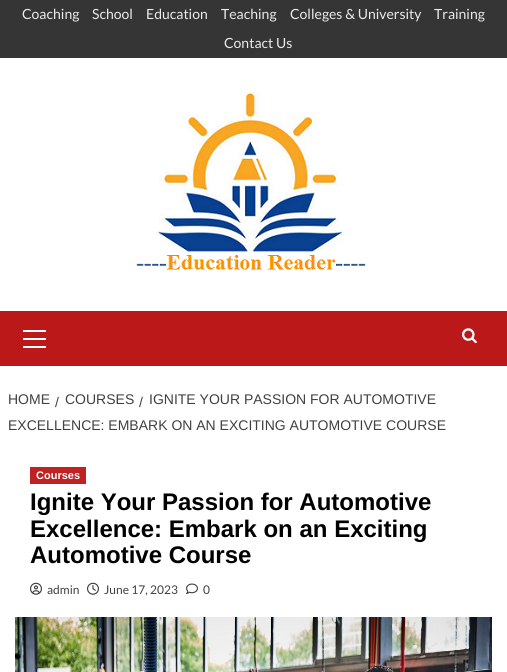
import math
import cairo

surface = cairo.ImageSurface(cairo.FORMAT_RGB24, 507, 672)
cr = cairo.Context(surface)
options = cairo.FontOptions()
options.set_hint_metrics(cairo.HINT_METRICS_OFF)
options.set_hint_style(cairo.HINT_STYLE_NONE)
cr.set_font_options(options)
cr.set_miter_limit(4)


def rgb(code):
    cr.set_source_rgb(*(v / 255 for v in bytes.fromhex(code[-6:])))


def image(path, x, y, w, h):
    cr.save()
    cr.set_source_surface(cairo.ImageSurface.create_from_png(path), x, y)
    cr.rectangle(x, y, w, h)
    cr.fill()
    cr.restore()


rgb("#ffffff")
cr.paint()
rgb("#353535")
cr.rectangle(0, 0, 507, 58)
cr.fill()
image("img/1.png", 136, 92, 230, 178)
for x, y, w, h, color in [
    (0, 311, 507, 55, "#bb1919"),
    (23, 338, 23, 2, "#ffffff"),
    (23, 330, 23, 2, "#ffffff"),
    (23, 346, 23, 2, "#ffffff"),
]:
    rgb(color)
    cr.rectangle(x, y, w, h)
    cr.fill()
image("img/2.png", 462, 328, 15, 16)
rgb("#be2222")
cr.rectangle(30, 467, 56, 17)
cr.fill()
image("img/3.png", 30, 582, 12, 13)
image("img/4.png", 87, 582, 12, 13)
image("img/5.png", 186, 583, 12, 11)
image("img/6.png", 15, 617, 477, 55)
cr.select_font_face("Lato")
cr.set_font_size(14)
rgb("#ebebeb")
for x, y, s in [
    (22, 19, "Coaching"),
    (92, 19, "School"),
    (146, 19, "Education"),
    (221, 19, "Teaching"),
    (290, 19, "Colleges & University"),
    (434, 19, "Training"),
    (224, 48, "Contact Us"),
]:
    cr.move_to(x, y)
    cr.show_text(s)
cr.select_font_face("Liberation Sans")
rgb("#404040")
for x, y, s in [
    (8, 404, "HOME"),
    (139, 407, "/"),
    (149, 404, "IGNITE YOUR PASSION FOR AUTOMOTIVE"),
    (8, 430, "EXCELLENCE: EMBARK ON AN EXCITING AUTOMOTIVE COURSE"),
    (55, 407, "/"),
    (65, 404, "COURSES"),
]:
    cr.move_to(x, y)
    cr.show_text(s)
cr.select_font_face("Liberation Sans", cairo.FONT_SLANT_NORMAL, cairo.FONT_WEIGHT_BOLD)
cr.set_font_size(11)
rgb("#ffffff")
cr.move_to(36, 479)
cr.show_text("Courses")
cr.set_font_size(24)
rgb("#000000")
for x, y, s in [
    (30, 510, "Ignite Your Passion for Automotive"),
    (30, 537, "Excellence: Embark on an Exciting"),
    (30, 563, "Automotive Course"),
]:
    cr.move_to(x, y)
    cr.show_text(s)
cr.select_font_face("Lato")
cr.set_font_size(12)
rgb("#404040")
for x, y, s in [
    (47, 594, "admin"),
    (104, 594, "June 17, 2023"),
    (203, 594, "0"),
]:
    cr.move_to(x, y)
    cr.show_text(s)
surface.write_to_png("page.png")
